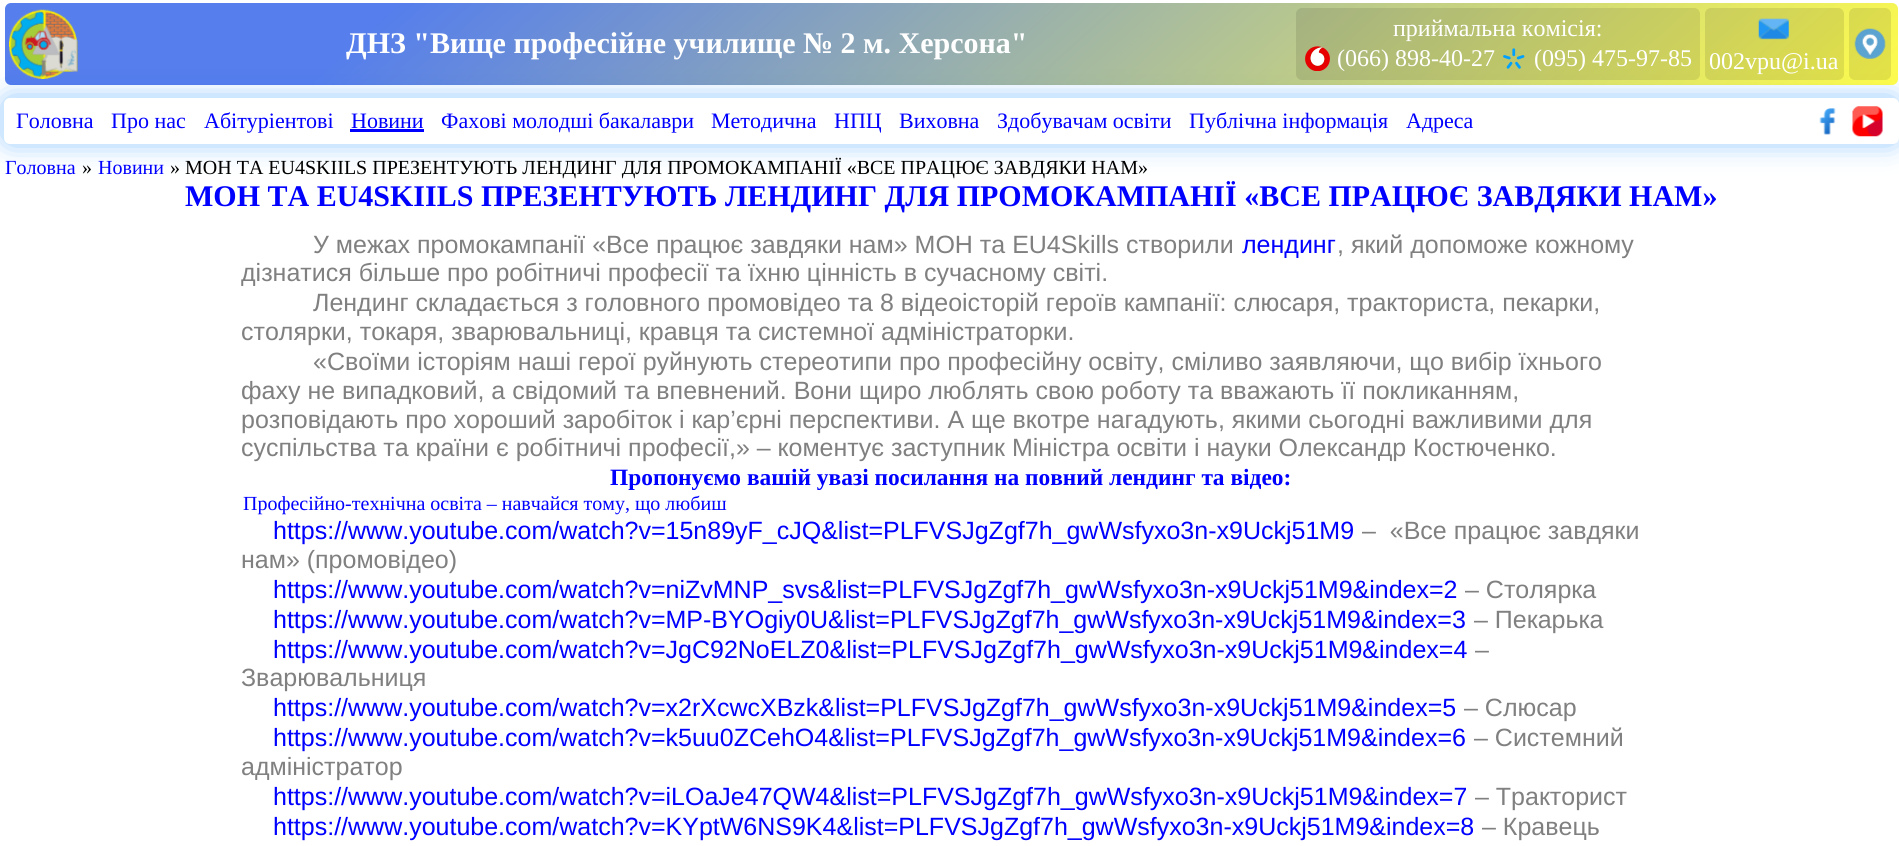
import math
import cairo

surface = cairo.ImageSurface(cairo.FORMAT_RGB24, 1899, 846)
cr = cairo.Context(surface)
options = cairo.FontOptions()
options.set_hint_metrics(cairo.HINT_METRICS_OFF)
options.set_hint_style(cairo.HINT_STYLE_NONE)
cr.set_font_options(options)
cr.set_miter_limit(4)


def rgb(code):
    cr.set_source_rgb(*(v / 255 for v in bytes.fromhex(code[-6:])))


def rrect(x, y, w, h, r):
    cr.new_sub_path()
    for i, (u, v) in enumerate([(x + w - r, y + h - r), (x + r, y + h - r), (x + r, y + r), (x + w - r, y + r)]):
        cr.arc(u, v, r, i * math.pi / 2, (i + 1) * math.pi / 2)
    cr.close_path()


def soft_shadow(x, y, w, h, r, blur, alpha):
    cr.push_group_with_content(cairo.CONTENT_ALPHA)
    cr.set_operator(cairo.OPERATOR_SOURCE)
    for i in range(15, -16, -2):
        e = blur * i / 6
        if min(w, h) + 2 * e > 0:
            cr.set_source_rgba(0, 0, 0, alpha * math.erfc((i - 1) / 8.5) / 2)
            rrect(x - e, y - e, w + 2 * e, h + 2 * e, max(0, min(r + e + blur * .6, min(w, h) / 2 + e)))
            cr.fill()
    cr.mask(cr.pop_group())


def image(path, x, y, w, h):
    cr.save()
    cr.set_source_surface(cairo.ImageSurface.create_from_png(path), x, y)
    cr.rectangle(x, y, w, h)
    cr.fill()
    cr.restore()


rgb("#ffffff")
cr.paint()
rgb("#0283ff")
soft_shadow(6, 100, 1890, 41, 4, 14, 0.5)
gradient = cairo.LinearGradient(507, -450, 1395, 537)
gradient.add_color_stop_rgba(0.2, 0.055, 0.282, 0.894, 0.7)
gradient.add_color_stop_rgba(1, 1, 0.984, 0, 0.7)
cr.set_source(gradient)
rrect(5, 3, 1893, 82, 6)
cr.fill()
image("img/1.png", 9, 9, 69, 70)
cr.set_source_rgba(0, 0, 0, 0.1)
rrect(1296, 8, 404, 72, 6)
cr.fill()
image("img/2.png", 1305, 46, 25, 25)
image("img/3.png", 1503, 48, 22, 21)
rrect(1849, 8, 42, 72, 6)
cr.fill()
image("img/4.png", 1854, 28, 32, 31)
rrect(1705, 8, 139, 72, 6)
cr.fill()
image("img/5.png", 1758, 18, 31, 22)
rgb("#ffffff")
rrect(4, 98, 1895, 46, 6)
cr.fill()
rgb("#0000ff")
cr.rectangle(350, 129, 74, 3)
cr.fill()
image("img/6.png", 1819, 108, 17, 27)
image("img/7.png", 1852, 106, 31, 31)
cr.select_font_face("Liberation Serif", cairo.FONT_SLANT_NORMAL, cairo.FONT_WEIGHT_BOLD)
cr.set_font_size(30)
rgb("#ffffff")
cr.move_to(346, 53)
cr.show_text("ДНЗ \"Вище професiйне училище № 2 м. Херсона\"")
cr.select_font_face("Liberation Serif")
cr.set_font_size(24)
for x, y, s in [
    (1393, 36, "приймальнa комiсiя:"),
    (1337, 66, "(066) 898-40-27"),
    (1534, 66, "(095) 475-97-85"),
    (1709, 69, "002vpu@i.ua"),
]:
    cr.move_to(x, y)
    cr.show_text(s)
cr.set_font_size(22)
rgb("#0000ff")
for x, y, s in [
    (16, 128, "Головна"),
    (111, 128, "Про нас"),
    (204, 128, "Абiтурiентовi"),
    (351, 128, "Новини"),
    (441, 128, "Фахові молодші бакалаври"),
    (711, 128, "Методична"),
    (834, 128, "НПЦ"),
    (899, 128, "Виховна"),
    (997, 128, "Здобувачам освіти"),
    (1189, 128, "Публiчна iнформацiя"),
    (1406, 128, "Адреса"),
]:
    cr.move_to(x, y)
    cr.show_text(s)
cr.set_font_size(20)
cr.move_to(5, 174)
cr.show_text("Головна")
rgb("#000000")
cr.move_to(82, 174)
cr.show_text("»")
rgb("#0000ff")
cr.move_to(98, 174)
cr.show_text("Новини")
rgb("#000000")
cr.move_to(170, 174)
cr.show_text("» МОН ТА EU4SKIILS ПРЕЗЕНТУЮТЬ ЛЕНДИНГ ДЛЯ ПРОМОКАМПАНІЇ «ВСЕ ПРАЦЮЄ ЗАВДЯКИ НАМ»")
cr.select_font_face("Liberation Serif", cairo.FONT_SLANT_NORMAL, cairo.FONT_WEIGHT_BOLD)
cr.set_font_size(30)
rgb("#0000ff")
cr.move_to(185, 206)
cr.show_text("МОН ТА EU4SKIILS ПРЕЗЕНТУЮТЬ ЛЕНДИНГ ДЛЯ ПРОМОКАМПАНІЇ «ВСЕ ПРАЦЮЄ ЗАВДЯКИ НАМ»")
cr.select_font_face("Liberation Sans")
cr.set_font_size(25)
rgb("#808080")
cr.move_to(313, 253)
cr.show_text("У межах промокампанії «Все працює завдяки нам» МОН та EU4Skills створили")
rgb("#0000ff")
cr.move_to(1242, 253)
cr.show_text("лендинг")
rgb("#808080")
for x, y, s in [
    (1337, 253, ", який допоможе кожному"),
    (241, 281, "дізнатися більше про робітничі професії та їхню цінність в сучасному світі."),
    (313, 311, "Лендинг складається з головного промовідео та 8 відеоісторій героїв кампанії: слюсаря, тракториста, пекарки,"),
    (241, 340, "столярки, токаря, зварювальниці, кравця та системної адміністраторки."),
    (313, 370, "«Своїми історіям наші герої руйнують стереотипи про професійну освіту, сміливо заявляючи, що вибір їхнього"),
    (241, 399, "фаху не випадковий, а свідомий та впевнений. Вони щиро люблять свою роботу та вважають її покликанням,"),
    (241, 428, "розповідають про хороший заробіток і кар’єрні перспективи. А ще вкотре нагадують, якими сьогодні важливими для"),
    (241, 456, "суспільства та країни є робітничі професії,» – коментує заступник Міністра освіти і науки Олександр Костюченко."),
]:
    cr.move_to(x, y)
    cr.show_text(s)
cr.select_font_face("Liberation Serif", cairo.FONT_SLANT_NORMAL, cairo.FONT_WEIGHT_BOLD)
cr.set_font_size(23.4)
rgb("#0000ff")
cr.move_to(610, 485)
cr.show_text("Пропонуємо вашій увазі посилання на повний лендинг та відео:")
cr.select_font_face("Liberation Serif")
cr.set_font_size(20)
cr.move_to(243, 510)
cr.show_text("Професійно-технічна освіта – навчайся тому, що любиш")
cr.select_font_face("Liberation Sans")
cr.set_font_size(25)
cr.move_to(273, 539)
cr.show_text("https://www.youtube.com/watch?v=15n89yF_cJQ&list=PLFVSJgZgf7h_gwWsfyxo3n-x9Uckj51M9")
rgb("#808080")
cr.move_to(1362, 539)
cr.show_text("–  «Все працює завдяки")
cr.move_to(241, 568)
cr.show_text("нам» (промовідео)")
rgb("#0000ff")
cr.move_to(273, 598)
cr.show_text("https://www.youtube.com/watch?v=niZvMNP_svs&list=PLFVSJgZgf7h_gwWsfyxo3n-x9Uckj51M9&index=2")
rgb("#808080")
cr.move_to(1465, 598)
cr.show_text("– Столярка")
rgb("#0000ff")
cr.move_to(273, 628)
cr.show_text("https://www.youtube.com/watch?v=MP-BYOgiy0U&list=PLFVSJgZgf7h_gwWsfyxo3n-x9Uckj51M9&index=3")
rgb("#808080")
cr.move_to(1474, 628)
cr.show_text("– Пекарька")
rgb("#0000ff")
cr.move_to(273, 658)
cr.show_text("https://www.youtube.com/watch?v=JgC92NoELZ0&list=PLFVSJgZgf7h_gwWsfyxo3n-x9Uckj51M9&index=4")
rgb("#808080")
cr.move_to(1475, 658)
cr.show_text("–")
cr.move_to(241, 686)
cr.show_text("Зварювальниця")
rgb("#0000ff")
cr.move_to(273, 716)
cr.show_text("https://www.youtube.com/watch?v=x2rXcwcXBzk&list=PLFVSJgZgf7h_gwWsfyxo3n-x9Uckj51M9&index=5")
rgb("#808080")
cr.move_to(1464, 716)
cr.show_text("– Слюсар")
rgb("#0000ff")
cr.move_to(273, 746)
cr.show_text("https://www.youtube.com/watch?v=k5uu0ZCehO4&list=PLFVSJgZgf7h_gwWsfyxo3n-x9Uckj51M9&index=6")
rgb("#808080")
cr.move_to(1474, 746)
cr.show_text("– Системний")
cr.move_to(241, 775)
cr.show_text("адміністратор")
rgb("#0000ff")
cr.move_to(273, 805)
cr.show_text("https://www.youtube.com/watch?v=iLOaJe47QW4&list=PLFVSJgZgf7h_gwWsfyxo3n-x9Uckj51M9&index=7")
rgb("#808080")
cr.move_to(1475, 805)
cr.show_text("– Тракторист")
rgb("#0000ff")
cr.move_to(273, 835)
cr.show_text("https://www.youtube.com/watch?v=KYptW6NS9K4&list=PLFVSJgZgf7h_gwWsfyxo3n-x9Uckj51M9&index=8")
rgb("#808080")
cr.move_to(1482, 835)
cr.show_text("– Кравець")
surface.write_to_png("page.png")
